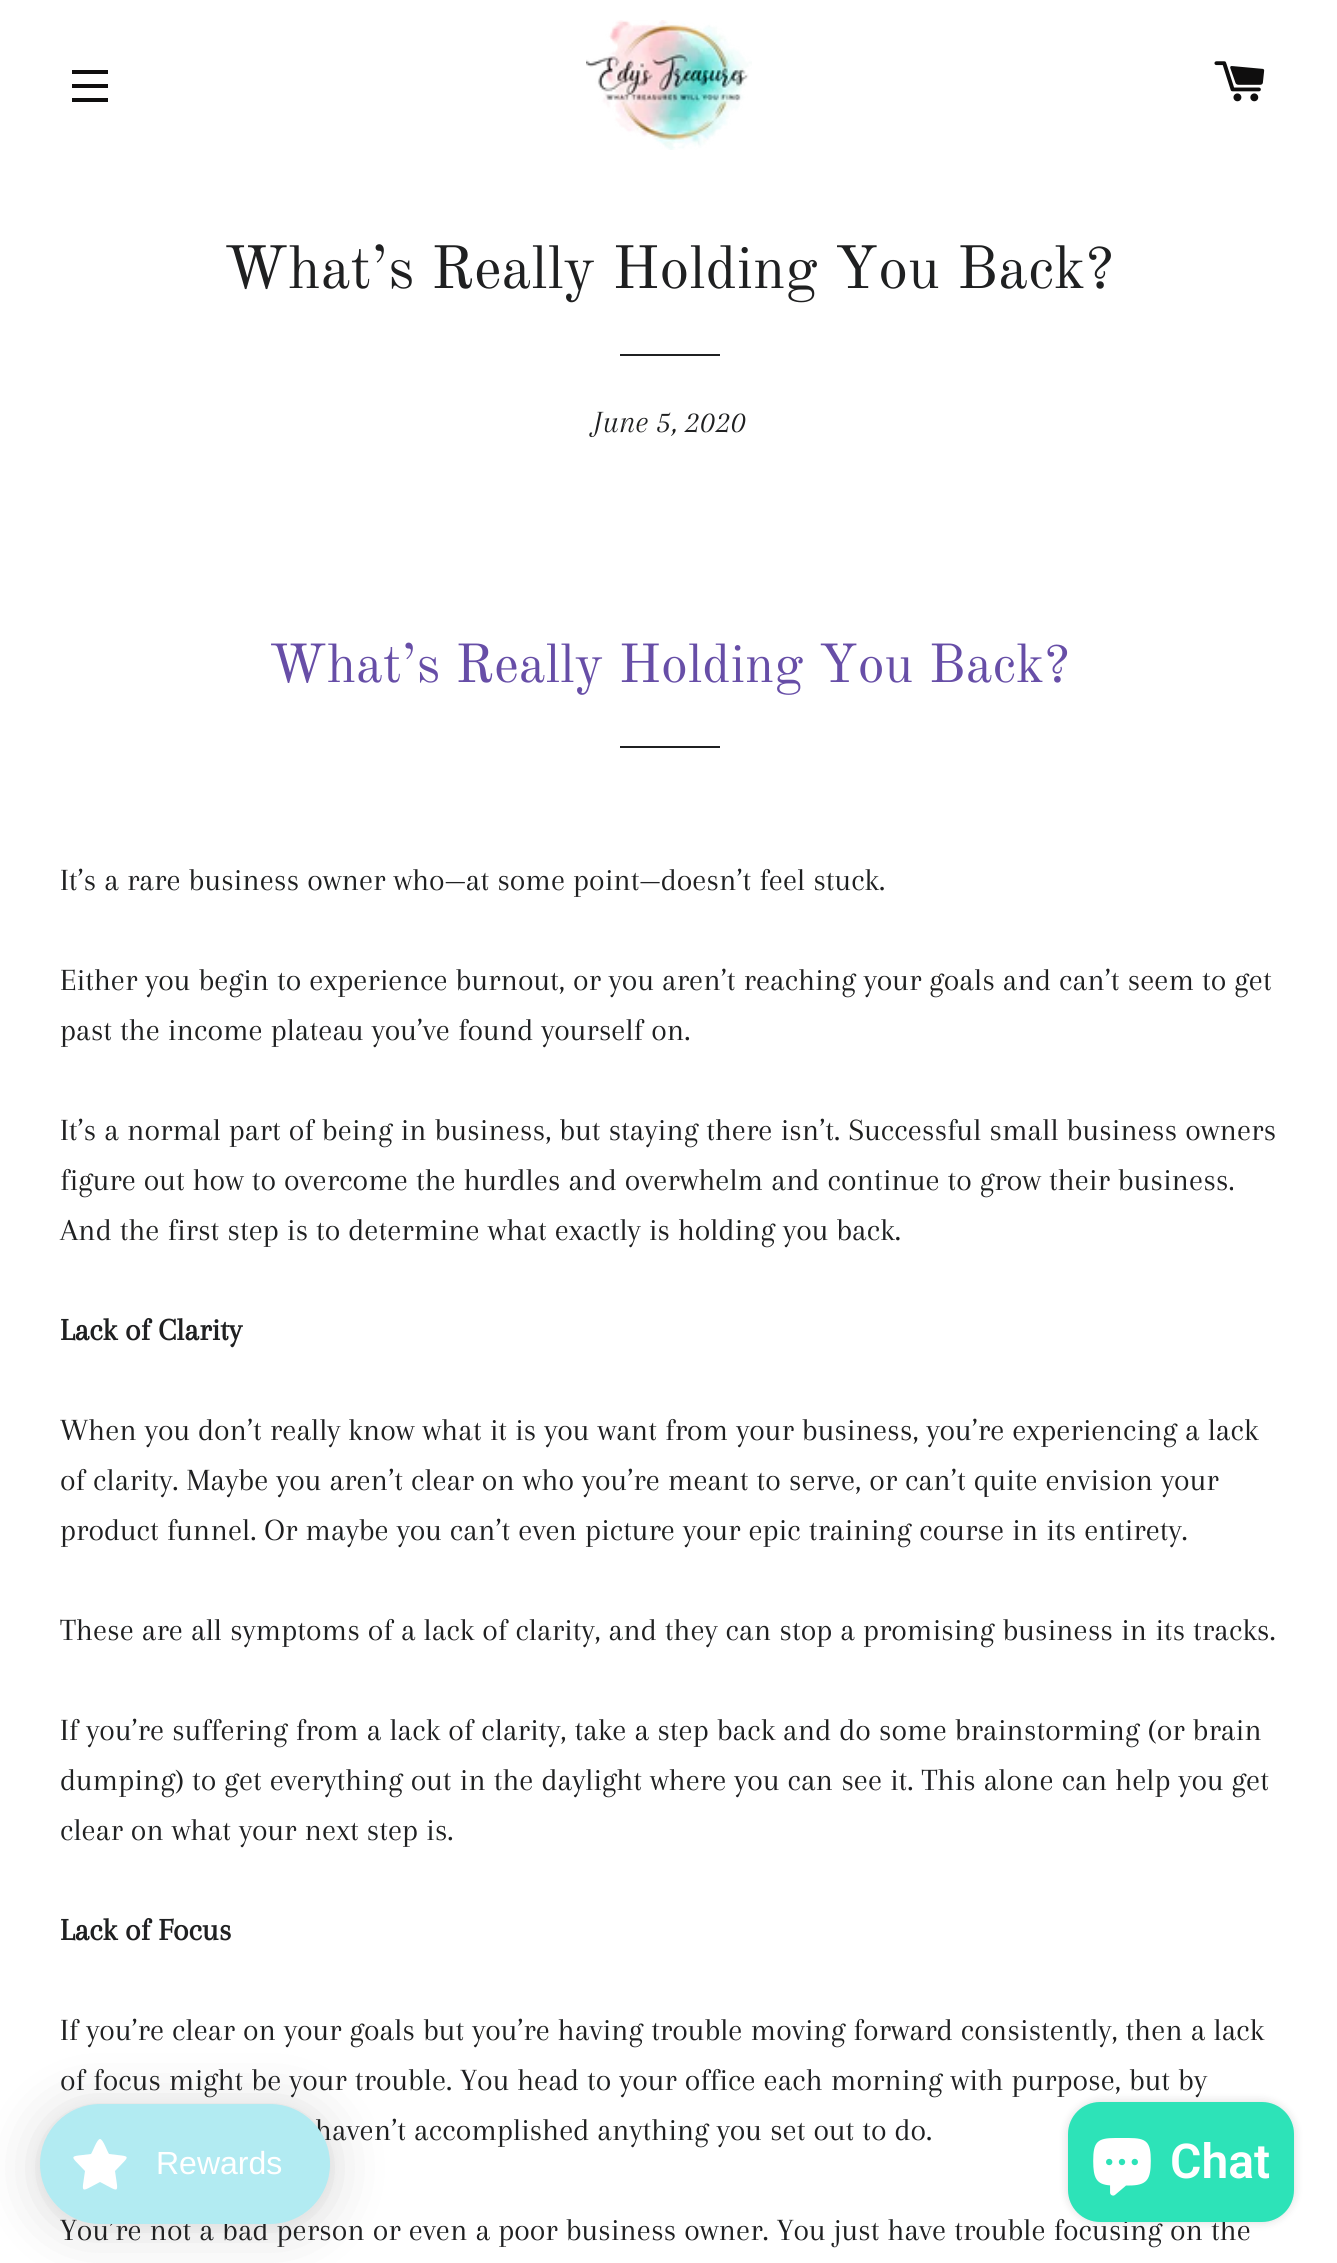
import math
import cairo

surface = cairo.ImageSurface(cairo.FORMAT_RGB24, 1337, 2263)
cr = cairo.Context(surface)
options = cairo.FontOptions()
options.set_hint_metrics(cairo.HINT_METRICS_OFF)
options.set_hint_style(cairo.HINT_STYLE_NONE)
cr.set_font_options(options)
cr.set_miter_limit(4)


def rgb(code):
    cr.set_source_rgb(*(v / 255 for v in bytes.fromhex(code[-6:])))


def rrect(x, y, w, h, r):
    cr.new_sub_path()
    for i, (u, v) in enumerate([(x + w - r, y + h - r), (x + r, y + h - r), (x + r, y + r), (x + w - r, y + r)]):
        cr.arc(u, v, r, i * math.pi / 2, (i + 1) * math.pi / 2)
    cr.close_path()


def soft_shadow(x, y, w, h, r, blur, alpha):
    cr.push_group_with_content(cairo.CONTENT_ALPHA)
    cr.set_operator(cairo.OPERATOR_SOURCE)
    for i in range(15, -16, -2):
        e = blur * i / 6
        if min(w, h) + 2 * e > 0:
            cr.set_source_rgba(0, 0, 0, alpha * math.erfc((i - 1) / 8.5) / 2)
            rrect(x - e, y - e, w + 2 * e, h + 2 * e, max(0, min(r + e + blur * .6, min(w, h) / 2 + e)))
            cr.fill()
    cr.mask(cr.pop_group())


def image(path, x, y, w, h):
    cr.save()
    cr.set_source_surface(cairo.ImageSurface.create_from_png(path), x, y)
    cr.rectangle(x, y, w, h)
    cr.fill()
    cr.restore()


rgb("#ffffff")
cr.paint()
for x, y, w, h, color in [
    (72, 70, 36, 4, "#0f0e0e"),
    (72, 84, 36, 4, "#0f0e0e"),
    (72, 98, 36, 4, "#0f0e0e"),
]:
    rgb(color)
    cr.rectangle(x, y, w, h)
    cr.fill()
image("img/1.png", 586, 20, 166, 130)
image("img/2.png", 1214, 61, 51, 41)
rgb("#1f2021")
cr.rectangle(620, 354, 100, 2)
cr.fill()
cr.rectangle(620, 746, 100, 2)
cr.fill()
rgb("#000000")
soft_shadow(40, 2108, 290, 120, 60, 30, 0.15)
soft_shadow(40, 2106, 290, 120, 60, 6, 0.05)
soft_shadow(1068, 2102, 226, 120, 32, 5, 0.15)
cr.select_font_face("Old Standard TT")
cr.set_font_size(60)
rgb("#1f2021")
cr.move_to(224, 288)
cr.show_text("What’s Really Holding You Back?")
cr.select_font_face("Arapey", cairo.FONT_SLANT_ITALIC)
cr.set_font_size(32)
cr.move_to(593, 432)
cr.show_text("June 5, 2020")
cr.select_font_face("Old Standard TT")
cr.set_font_size(54)
rgb("#674ea7")
cr.move_to(269, 682)
cr.show_text("What’s Really Holding You Back?")
cr.select_font_face("Arapey")
cr.set_font_size(32)
rgb("#1f2021")
for x, y, s in [
    (60, 890, "It’s a rare business owner who—at some point—doesn’t feel stuck."),
    (60, 990, "Either you begin to experience burnout, or you aren’t reaching your goals and can’t seem to get"),
    (60, 1040, "past the income plateau you’ve found yourself on."),
    (60, 1140, "It’s a normal part of being in business, but staying there isn’t. Successful small business owners"),
    (60, 1190, "figure out how to overcome the hurdles and overwhelm and continue to grow their business."),
    (60, 1240, "And the first step is to determine what exactly is holding you back."),
]:
    cr.move_to(x, y)
    cr.show_text(s)
cr.select_font_face("Arapey", cairo.FONT_SLANT_NORMAL, cairo.FONT_WEIGHT_BOLD)
cr.move_to(60, 1340)
cr.show_text("Lack of Clarity")
cr.select_font_face("Arapey")
for x, y, s in [
    (60, 1440, "When you don’t really know what it is you want from your business, you’re experiencing a lack"),
    (60, 1490, "of clarity. Maybe you aren’t clear on who you’re meant to serve, or can’t quite envision your"),
    (60, 1540, "product funnel. Or maybe you can’t even picture your epic training course in its entirety."),
    (60, 1640, "These are all symptoms of a lack of clarity, and they can stop a promising business in its tracks."),
    (60, 1740, "If you’re suffering from a lack of clarity, take a step back and do some brainstorming (or brain"),
    (60, 1790, "dumping) to get everything out in the daylight where you can see it. This alone can help you get"),
    (60, 1840, "clear on what your next step is."),
]:
    cr.move_to(x, y)
    cr.show_text(s)
cr.select_font_face("Arapey", cairo.FONT_SLANT_NORMAL, cairo.FONT_WEIGHT_BOLD)
cr.move_to(60, 1940)
cr.show_text("Lack of Focus")
cr.select_font_face("Arapey")
for x, y, s in [
    (60, 2040, "If you’re clear on your goals but you’re having trouble moving forward consistently, then a lack"),
    (60, 2090, "of focus might be your trouble. You head to your office each morning with purpose, but by"),
    (315, 2140, "haven’t accomplished anything you set out to do."),
    (60, 2240, "You’re not a bad person or even a poor business owner. You just have trouble focusing on the"),
]:
    cr.move_to(x, y)
    cr.show_text(s)
rgb("#b2ebf2")
rrect(40, 2104, 290, 120, 60)
cr.fill()
rgb("#ffffff")
cr.new_path()
cr.move_to(100, 2139)
cr.curve_to(97, 2139, 93, 2151, 91, 2154)
cr.curve_to(68, 2157, 69, 2154, 85, 2171)
cr.curve_to(82, 2194, 79, 2193, 100, 2182)
cr.curve_to(121, 2193, 118, 2194, 115, 2171)
cr.curve_to(131, 2154, 132, 2157, 109, 2154)
cr.curve_to(107, 2151, 103, 2139, 100, 2139)
cr.close_path()
cr.fill()
cr.select_font_face("Liberation Sans")
cr.move_to(156, 2174)
cr.show_text("Rewards")
rgb("#2de3b8")
rrect(1068, 2102, 226, 120, 32)
cr.fill()
image("img/3.png", 1093, 2138, 58, 58)
cr.select_font_face("Roboto SemiBold")
cr.set_font_size(48)
rgb("#ffffff")
cr.move_to(1170, 2178)
cr.show_text("Chat")
surface.write_to_png("page.png")
